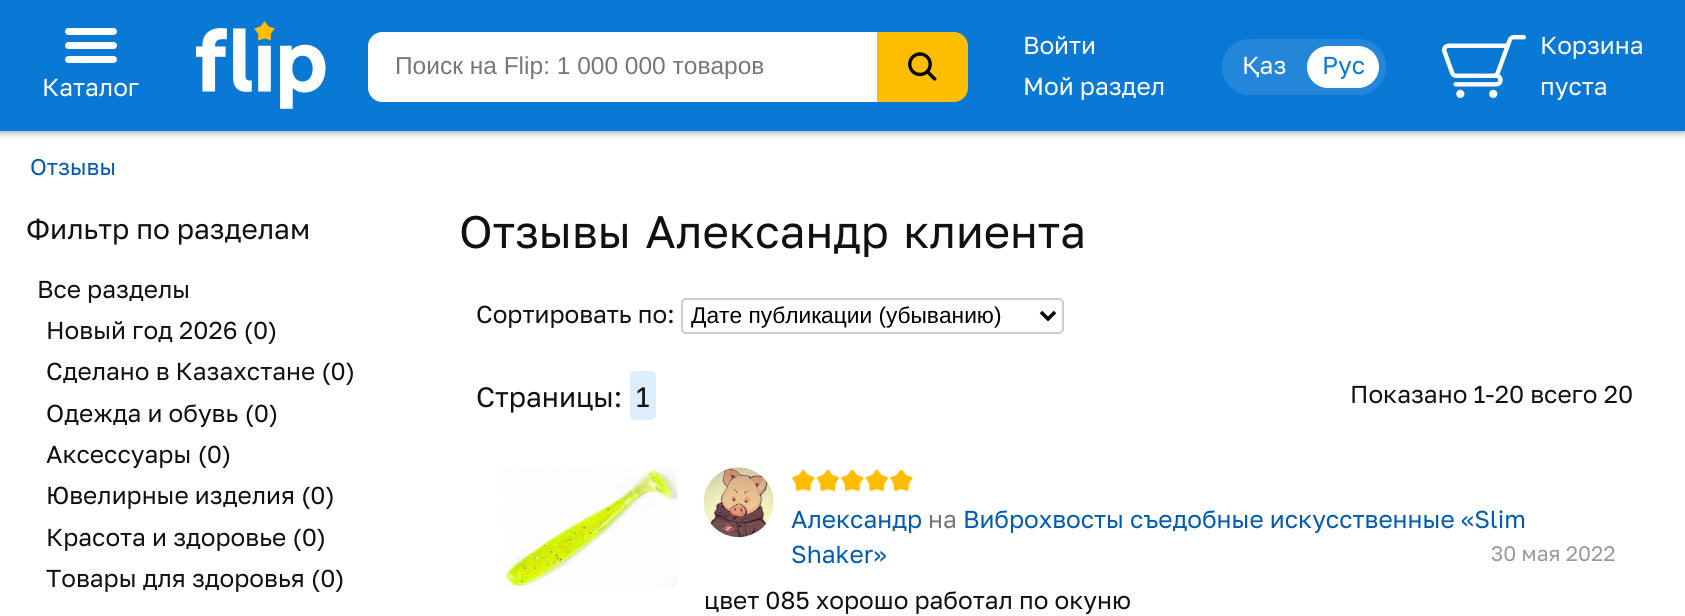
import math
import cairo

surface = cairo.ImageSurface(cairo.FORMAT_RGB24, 1685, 616)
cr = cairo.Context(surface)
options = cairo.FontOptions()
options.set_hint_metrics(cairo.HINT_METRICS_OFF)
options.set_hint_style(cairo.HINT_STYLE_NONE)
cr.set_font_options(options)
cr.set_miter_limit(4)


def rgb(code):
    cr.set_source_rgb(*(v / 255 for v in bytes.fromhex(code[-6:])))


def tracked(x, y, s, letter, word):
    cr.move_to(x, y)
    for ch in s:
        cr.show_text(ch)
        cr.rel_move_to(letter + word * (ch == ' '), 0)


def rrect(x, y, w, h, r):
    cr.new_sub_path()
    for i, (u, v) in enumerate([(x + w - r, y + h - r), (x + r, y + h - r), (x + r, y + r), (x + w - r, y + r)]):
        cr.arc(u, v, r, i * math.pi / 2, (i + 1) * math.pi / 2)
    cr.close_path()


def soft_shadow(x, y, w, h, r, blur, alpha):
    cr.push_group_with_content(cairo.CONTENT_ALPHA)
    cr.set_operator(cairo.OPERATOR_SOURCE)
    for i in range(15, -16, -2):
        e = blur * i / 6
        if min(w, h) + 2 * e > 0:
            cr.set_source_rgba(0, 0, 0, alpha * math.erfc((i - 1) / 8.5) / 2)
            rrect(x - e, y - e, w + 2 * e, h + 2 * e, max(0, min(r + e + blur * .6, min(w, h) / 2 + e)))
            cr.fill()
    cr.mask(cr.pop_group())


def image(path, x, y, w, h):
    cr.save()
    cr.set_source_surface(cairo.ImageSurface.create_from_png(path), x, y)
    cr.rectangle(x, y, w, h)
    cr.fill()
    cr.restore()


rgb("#ffffff")
cr.paint()
rgb("#000000")
soft_shadow(0, 0, 1685, 131, 0, 4.5, 0.5)
rgb("#0a79d5")
cr.rectangle(0, 0, 1685, 131)
cr.fill()
image("img/1.png", 196, 21, 130, 88)
rgb("#ffffff")
cr.new_path()
cr.move_to(382, 32)
cr.line_to(877, 32)
cr.line_to(877, 102)
cr.line_to(382, 102)
cr.curve_to(374.5, 102, 368, 95.5, 368, 88)
cr.line_to(368, 46)
cr.curve_to(368, 38.5, 374.5, 32, 382, 32)
cr.close_path()
cr.fill()
rgb("#febd01")
cr.new_path()
cr.move_to(877, 32)
cr.line_to(954, 32)
cr.curve_to(961.5, 32, 968, 38.5, 968, 46)
cr.line_to(968, 88)
cr.curve_to(968, 95.5, 961.5, 102, 954, 102)
cr.line_to(877, 102)
cr.close_path()
cr.fill()
image("img/2.png", 908, 52, 29, 29)
rgb("#2386d9")
rrect(1222, 39, 164, 56, 28)
cr.fill()
rgb("#ffffff")
rrect(1307, 46, 72, 42, 21)
cr.fill()
image("img/3.png", 1442, 35, 84, 63)
rrect(65, 28, 52, 7, 3.5)
cr.fill()
rrect(65, 42, 52, 7, 3.5)
cr.fill()
rrect(65, 56, 52, 7, 3.5)
cr.fill()
rrect(682, 299, 381, 34, 4)
rgb("#cccccc")
cr.stroke()
cr.new_path()
cr.move_to(1041, 312)
cr.line_to(1048, 319)
cr.line_to(1055, 312)
rgb("#000000")
cr.set_line_width(3.5)
cr.stroke()
rgb("#ddefff")
rrect(630, 371, 26, 49, 5)
cr.fill()
image("img/4.png", 502, 467, 176, 121)
image("img/5.png", 704, 467, 70, 71)
image("img/6.png", 792, 469, 23, 23)
image("img/7.png", 816, 469, 23, 23)
image("img/6.png", 841, 469, 23, 23)
image("img/7.png", 865, 469, 23, 23)
image("img/6.png", 890, 469, 23, 23)
cr.select_font_face("Liberation Sans")
cr.set_font_size(24.5)
rgb("#777777")
cr.move_to(395, 74)
cr.show_text("Поиск на Flip: 1 000 000 товаров")
cr.select_font_face("Golos Text")
rgb("#ffffff")
for x, y, s in [
    (1023, 54, "Войти"),
    (1023, 95, "Мой раздел"),
    (1242, 74, "Қаз"),
]:
    cr.move_to(x, y)
    cr.show_text(s)
rgb("#0a79d5")
cr.move_to(1322, 74)
cr.show_text("Рус")
rgb("#ffffff")
for x, y, s in [
    (1540, 54, "Корзина"),
    (1540, 95, "пуста"),
    (42, 96, "Каталог"),
]:
    cr.move_to(x, y)
    cr.show_text(s)
cr.set_font_size(22.75)
rgb("#005bb5")
cr.move_to(30, 175)
cr.show_text("Отзывы")
cr.set_font_size(28)
rgb("#101112")
cr.move_to(26, 239)
cr.show_text("Фильтр по разделам")
cr.set_font_size(24.5)
for x, y, s in [
    (37, 298, "Все разделы"),
    (46, 339, "Новый год 2026 (0)"),
    (46, 380, "Сделано в Казахстане (0)"),
    (46, 422, "Одежда и обувь (0)"),
    (46, 463, "Аксессуары (0)"),
    (46, 504, "Ювелирные изделия (0)"),
    (46, 546, "Красота и здоровье (0)"),
    (46, 587, "Товары для здоровья (0)"),
]:
    cr.move_to(x, y)
    cr.show_text(s)
cr.set_font_size(45.5)
tracked(459, 248, "Отзывы Александр клиента", 0, 3)
cr.set_font_size(24.5)
cr.move_to(476, 323)
cr.show_text("Сортировать по:")
cr.select_font_face("Liberation Sans")
cr.set_font_size(22.75)
rgb("#000000")
cr.move_to(691, 323)
cr.show_text("Дате публикации (убыванию)")
cr.select_font_face("Golos Text")
cr.set_font_size(28)
rgb("#101112")
cr.move_to(476, 407)
cr.show_text("Страницы:")
cr.move_to(636, 407)
cr.show_text("1")
cr.set_font_size(24.5)
cr.move_to(1350, 403)
cr.show_text("Показано 1-20 всего 20")
rgb("#005bb5")
cr.move_to(791, 528)
cr.show_text("Александр")
rgb("#777777")
cr.move_to(928, 528)
cr.show_text("на")
rgb("#005bb5")
cr.move_to(963, 528)
cr.show_text("Виброхвосты съедобные искусственные «Slim")
cr.move_to(791, 563)
cr.show_text("Shaker»")
cr.set_font_size(21)
rgb("#999999")
cr.move_to(1491, 561)
cr.show_text("30 мая 2022")
cr.set_font_size(24.5)
rgb("#101112")
cr.move_to(704, 609)
cr.show_text("цвет 085 хорошо работал по окуню")
surface.write_to_png("page.png")
